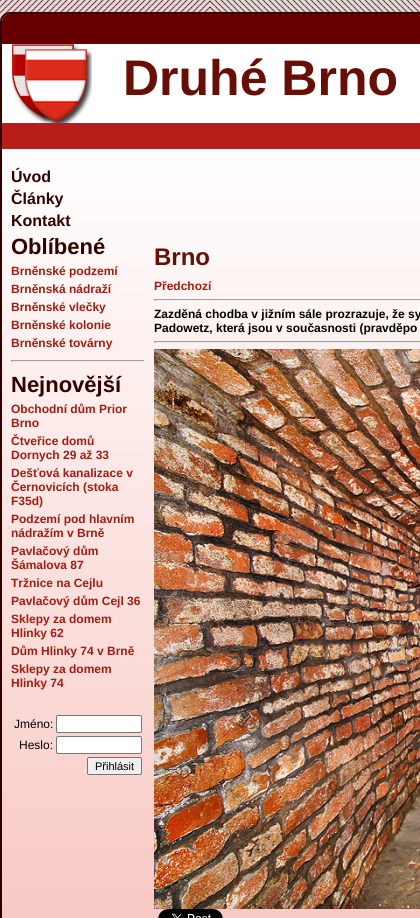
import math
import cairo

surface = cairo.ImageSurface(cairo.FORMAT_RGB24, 420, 918)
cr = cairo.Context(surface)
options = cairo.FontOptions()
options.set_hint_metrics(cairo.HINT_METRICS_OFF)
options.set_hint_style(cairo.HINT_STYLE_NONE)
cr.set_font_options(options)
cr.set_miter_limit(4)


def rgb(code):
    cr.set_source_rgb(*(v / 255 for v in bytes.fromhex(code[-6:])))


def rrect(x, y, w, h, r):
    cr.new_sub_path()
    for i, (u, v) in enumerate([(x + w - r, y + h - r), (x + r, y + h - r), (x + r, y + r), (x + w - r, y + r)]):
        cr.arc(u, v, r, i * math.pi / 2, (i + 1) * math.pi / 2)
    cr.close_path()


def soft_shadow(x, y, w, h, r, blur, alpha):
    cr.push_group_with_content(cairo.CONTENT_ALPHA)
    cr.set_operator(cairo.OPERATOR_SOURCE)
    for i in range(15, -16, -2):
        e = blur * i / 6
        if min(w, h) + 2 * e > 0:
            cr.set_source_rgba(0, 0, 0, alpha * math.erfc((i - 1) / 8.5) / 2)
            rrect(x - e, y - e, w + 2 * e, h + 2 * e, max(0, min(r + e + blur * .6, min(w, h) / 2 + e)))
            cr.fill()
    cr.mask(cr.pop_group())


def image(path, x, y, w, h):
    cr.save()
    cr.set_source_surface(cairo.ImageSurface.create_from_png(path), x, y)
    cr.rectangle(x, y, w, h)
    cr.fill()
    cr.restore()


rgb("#ffffff")
cr.paint()
image("img/1.png", 0, 0, 210, 22)
image("img/2.png", 210, 0, 210, 12)
rgb("#000000")
soft_shadow(3, 15, 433, 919, 10, 2, 1)
cr.save()
rrect(0, 12, 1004, 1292, 10)
cr.clip()
gradient = cairo.LinearGradient(2, 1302, 2, 14)
gradient.add_color_stop_rgba(0, 0.961, 0.686, 0.655, 1)
gradient.add_color_stop_rgba(0.9, 1, 1, 1, 1)
cr.set_source(gradient)
cr.rectangle(0, 14, 420, 904)
cr.fill()
cr.restore()
rrect(1, 13, 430, 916, 9)
rgb("#330000")
cr.stroke()
rgb("#660000")
cr.new_path()
cr.move_to(10, 14)
cr.line_to(420, 14)
cr.curve_to(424.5, 14, 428, 17.5, 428, 22)
cr.line_to(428, 44)
cr.line_to(2, 44)
cr.line_to(2, 22)
cr.curve_to(2, 17.5, 5.5, 14, 10, 14)
cr.close_path()
cr.fill()
image("img/3.png", 12, 44, 80, 79)
for x, y, w, h, color in [
    (2, 123, 418, 26, "#b61e17"),
    (11, 360, 134, 1, "#9f9f9f"),
    (144, 360, 1, 2, "#eeeeee"),
    (11, 361, 134, 1, "#eeeeee"),
    (11, 360, 1, 2, "#9f9f9f"),
]:
    rgb(color)
    cr.rectangle(x, y, w, h)
    cr.fill()
rgb("#ffffff")
rrect(56.5, 715.5, 85, 17, 1.5)
cr.fill_preserve()
rgb("#767676")
cr.set_line_width(1)
cr.stroke()
rgb("#ffffff")
rrect(56.5, 736.5, 85, 17, 1.5)
cr.fill_preserve()
rgb("#767676")
cr.stroke()
rgb("#efefef")
rrect(87.5, 757.5, 54, 17, 1.5)
cr.fill_preserve()
rgb("#767676")
cr.stroke()
for x, y, w, h, color in [
    (154, 299, 266, 1, "#9f9f9f"),
    (154, 300, 266, 1, "#eeeeee"),
    (154, 299, 1, 2, "#9f9f9f"),
    (154, 341, 266, 1, "#9f9f9f"),
    (154, 342, 266, 1, "#eeeeee"),
    (154, 341, 1, 2, "#9f9f9f"),
]:
    rgb(color)
    cr.rectangle(x, y, w, h)
    cr.fill()
image("img/4.png", 154, 349, 266, 560)
image("img/5.png", 158, 909, 65, 9)
cr.select_font_face("Liberation Sans", cairo.FONT_SLANT_NORMAL, cairo.FONT_WEIGHT_BOLD)
cr.set_font_size(50)
rgb("#670e06")
cr.move_to(123, 95)
cr.show_text("Druhé Brno")
cr.set_font_size(16)
rgb("#330000")
for x, y, s in [
    (11, 182, "Úvod"),
    (11, 204, "Články"),
    (11, 226, "Kontakt"),
]:
    cr.move_to(x, y)
    cr.show_text(s)
cr.set_font_size(22)
cr.move_to(11, 254)
cr.show_text("Oblíbené")
cr.set_font_size(12)
rgb("#a11d11")
for x, y, s in [
    (11, 275, "Brněnské podzemí"),
    (11, 293, "Brněnská nádraží"),
    (11, 311, "Brněnské vlečky"),
    (11, 329, "Brněnské kolonie"),
    (11, 347, "Brněnské továrny"),
]:
    cr.move_to(x, y)
    cr.show_text(s)
cr.set_font_size(22)
rgb("#330000")
cr.move_to(11, 392)
cr.show_text("Nejnovější")
cr.set_font_size(12)
rgb("#a11d11")
for x, y, s in [
    (11, 413, "Obchodní dům Prior"),
    (11, 427, "Brno"),
    (11, 445, "Čtveřice domů"),
    (11, 459, "Dornych 29 až 33"),
    (11, 477, "Dešťová kanalizace v"),
    (11, 491, "Černovicích (stoka"),
    (11, 505, "F35d)"),
    (11, 523, "Podzemí pod hlavním"),
    (11, 537, "nádražím v Brně"),
    (11, 555, "Pavlačový dům"),
    (11, 569, "Šámalova 87"),
    (11, 587, "Tržnice na Cejlu"),
    (11, 605, "Pavlačový dům Cejl 36"),
    (11, 623, "Sklepy za domem"),
    (11, 637, "Hlinky 62"),
    (11, 655, "Dům Hlinky 74 v Brně"),
    (11, 673, "Sklepy za domem"),
    (11, 687, "Hlinky 74"),
]:
    cr.move_to(x, y)
    cr.show_text(s)
cr.select_font_face("Liberation Sans")
rgb("#000000")
cr.move_to(14, 728)
cr.show_text("Jméno:")
cr.move_to(19, 749)
cr.show_text("Heslo:")
cr.set_font_size(11)
cr.move_to(95, 770)
cr.show_text("Přihlásit")
cr.select_font_face("Liberation Sans", cairo.FONT_SLANT_NORMAL, cairo.FONT_WEIGHT_BOLD)
cr.set_font_size(24)
rgb("#670e06")
cr.move_to(154, 265)
cr.show_text("Brno")
cr.set_font_size(12)
rgb("#a11d11")
cr.move_to(154, 290)
cr.show_text("Předchozí")
rgb("#000000")
cr.move_to(154, 318)
cr.show_text("Zazděná chodba v jižním sále prozrazuje, že sy")
cr.move_to(154, 332)
cr.show_text("Padowetz, která jsou v současnosti (pravděpo")
surface.write_to_png("page.png")
